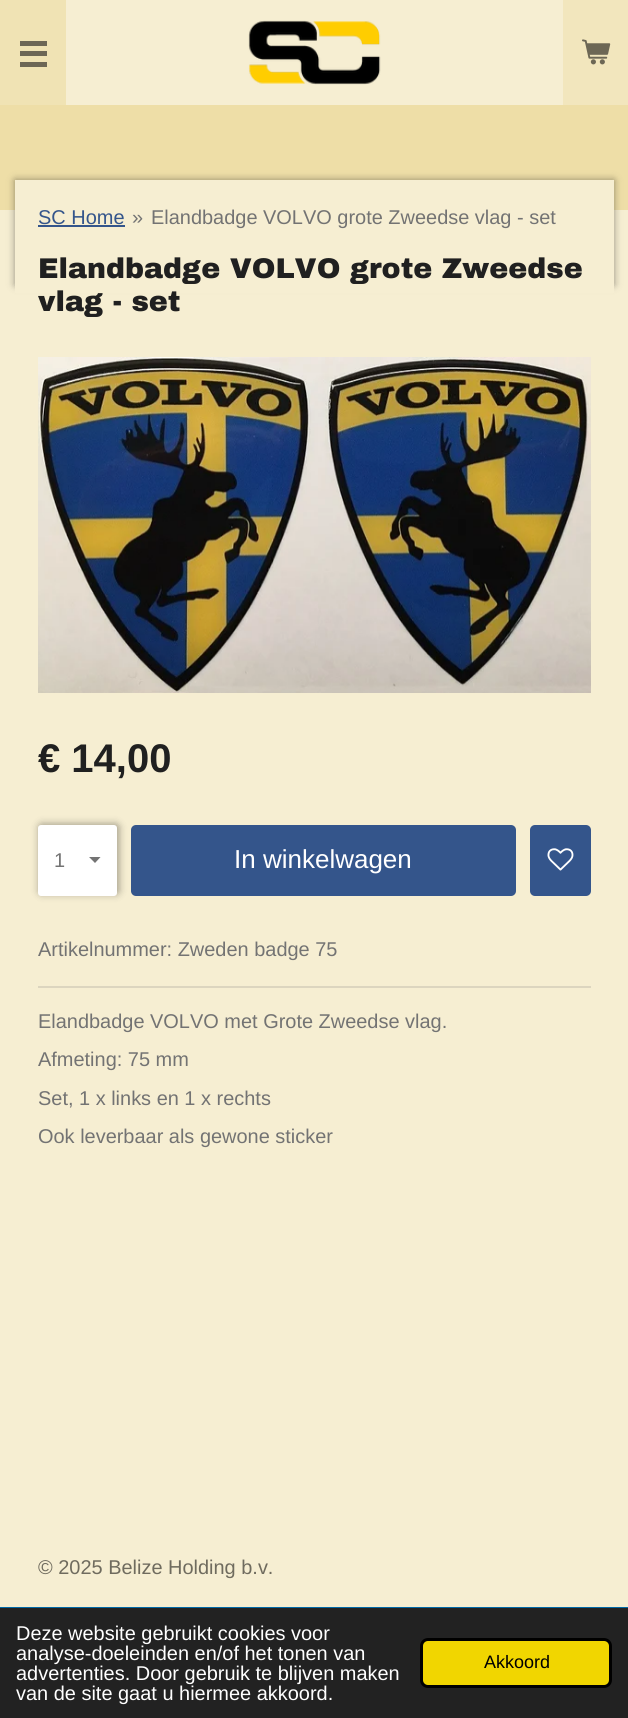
import math
import cairo

surface = cairo.ImageSurface(cairo.FORMAT_RGB24, 628, 1718)
cr = cairo.Context(surface)
options = cairo.FontOptions()
options.set_hint_metrics(cairo.HINT_METRICS_OFF)
options.set_hint_style(cairo.HINT_STYLE_NONE)
cr.set_font_options(options)
cr.set_miter_limit(4)


def rgb(code):
    cr.set_source_rgb(*(v / 255 for v in bytes.fromhex(code[-6:])))


def rrect(x, y, w, h, r):
    cr.new_sub_path()
    for i, (u, v) in enumerate([(x + w - r, y + h - r), (x + r, y + h - r), (x + r, y + r), (x + w - r, y + r)]):
        cr.arc(u, v, r, i * math.pi / 2, (i + 1) * math.pi / 2)
    cr.close_path()


def soft_shadow(x, y, w, h, r, blur, alpha):
    cr.push_group_with_content(cairo.CONTENT_ALPHA)
    cr.set_operator(cairo.OPERATOR_SOURCE)
    for i in range(15, -16, -2):
        e = blur * i / 6
        if min(w, h) + 2 * e > 0:
            cr.set_source_rgba(0, 0, 0, alpha * math.erfc((i - 1) / 8.5) / 2)
            rrect(x - e, y - e, w + 2 * e, h + 2 * e, max(0, min(r + e + blur * .6, min(w, h) / 2 + e)))
            cr.fill()
    cr.mask(cr.pop_group())


def image(path, x, y, w, h):
    cr.save()
    cr.set_source_surface(cairo.ImageSurface.create_from_png(path), x, y)
    cr.rectangle(x, y, w, h)
    cr.fill()
    cr.restore()


rgb("#f6eed2")
cr.paint()
for x, y, w, h, color in [
    (0, 0, 66, 105, "#f0e3b4"),
    (20, 51, 27, 5, "#6d6755"),
    (20, 41, 27, 5, "#6d6755"),
    (20, 62, 27, 5, "#6d6755"),
]:
    rgb(color)
    cr.rectangle(x, y, w, h)
    cr.fill()
image("img/1.png", 248, 20, 133, 65)
rgb("#f2e6bd")
cr.rectangle(563, 0, 65, 105)
cr.fill()
image("img/2.png", 582, 39, 29, 26)
rgb("#eedea7")
cr.rectangle(0, 105, 628, 105)
cr.fill()
rgb("#000000")
soft_shadow(15, 180, 599, 105, 0, 4, 0.4)
rgb("#f6eed2")
cr.rectangle(15, 180, 599, 113)
cr.fill()
rgb("#34558b")
cr.rectangle(38, 225, 87, 2)
cr.fill()
image("img/3.png", 38, 357, 553, 336)
rgb("#000000")
soft_shadow(39, 824, 80, 70, 3, 4, 0.35)
rgb("#ffffff")
rrect(38, 825, 79, 71, 3)
cr.fill()
cr.save()
cr.rectangle(89, 857, 13, 7)
cr.clip()
rgb("#737373")
cr.new_path()
cr.move_to(95, 863)
cr.line_to(88.5, 856.5)
cr.line_to(101, 856.5)
cr.close_path()
cr.fill()
cr.restore()
rgb("#34558b")
rrect(131, 825, 385, 71, 5)
cr.fill()
rrect(530, 825, 61, 71, 5)
cr.fill()
image("img/4.png", 547, 848, 27, 23)
for x, y, w, h, color in [
    (38, 986, 553, 2, "#dcd5bf"),
    (0, 1607, 628, 1, "#006aa7"),
    (0, 1608, 628, 110, "#222222"),
]:
    rgb(color)
    cr.rectangle(x, y, w, h)
    cr.fill()
rgb("#f1d600")
rrect(421.5, 1639.5, 189, 47, 6.5)
cr.fill_preserve()
rgb("#000000")
cr.set_line_width(3)
cr.stroke()
cr.select_font_face("Liberation Sans")
cr.set_font_size(19.95)
rgb("#34558b")
cr.move_to(38, 224)
cr.show_text("SC Home")
rgb("#737373")
cr.move_to(132, 224)
cr.show_text("»")
cr.move_to(151, 224)
cr.show_text("Elandbadge VOLVO grote Zweedse vlag - set")
cr.select_font_face("Archivo Black Black")
cr.set_font_size(28.5)
rgb("#202020")
cr.move_to(38, 278)
cr.show_text("Elandbadge VOLVO grote Zweedse")
cr.move_to(38, 311)
cr.show_text("vlag - set")
cr.select_font_face("Liberation Sans", cairo.FONT_SLANT_NORMAL, cairo.FONT_WEIGHT_BOLD)
cr.set_font_size(40)
cr.move_to(38, 772)
cr.show_text("€ 14,00")
cr.select_font_face("Liberation Sans")
cr.set_font_size(19.95)
rgb("#737373")
cr.move_to(54, 867)
cr.show_text("1")
cr.set_font_size(26)
rgb("#ffffff")
cr.move_to(234, 868)
cr.show_text("In winkelwagen")
cr.set_font_size(19.95)
rgb("#737373")
for x, y, s in [
    (38, 956, "Artikelnummer: Zweden badge 75"),
    (38, 1028, "Elandbadge VOLVO met Grote Zweedse vlag."),
    (38, 1066, "Afmeting: 75 mm"),
    (38, 1105, "Set, 1 x links en 1 x rechts"),
    (38, 1143, "Ook leverbaar als gewone sticker"),
]:
    cr.move_to(x, y)
    cr.show_text(s)
rgb("#6f6b5e")
cr.move_to(38, 1574)
cr.show_text("© 2025 Belize Holding b.v.")
rgb("#ffffff")
for x, y, s in [
    (16, 1640, "Deze website gebruikt cookies voor"),
    (16, 1660, "analyse-doeleinden en/of het tonen van"),
    (16, 1680, "advertenties. Door gebruik te blijven maken"),
    (16, 1700, "van de site gaat u hiermee akkoord."),
]:
    cr.move_to(x, y)
    cr.show_text(s)
cr.set_font_size(18)
rgb("#000000")
cr.move_to(484, 1668)
cr.show_text("Akkoord")
surface.write_to_png("page.png")
